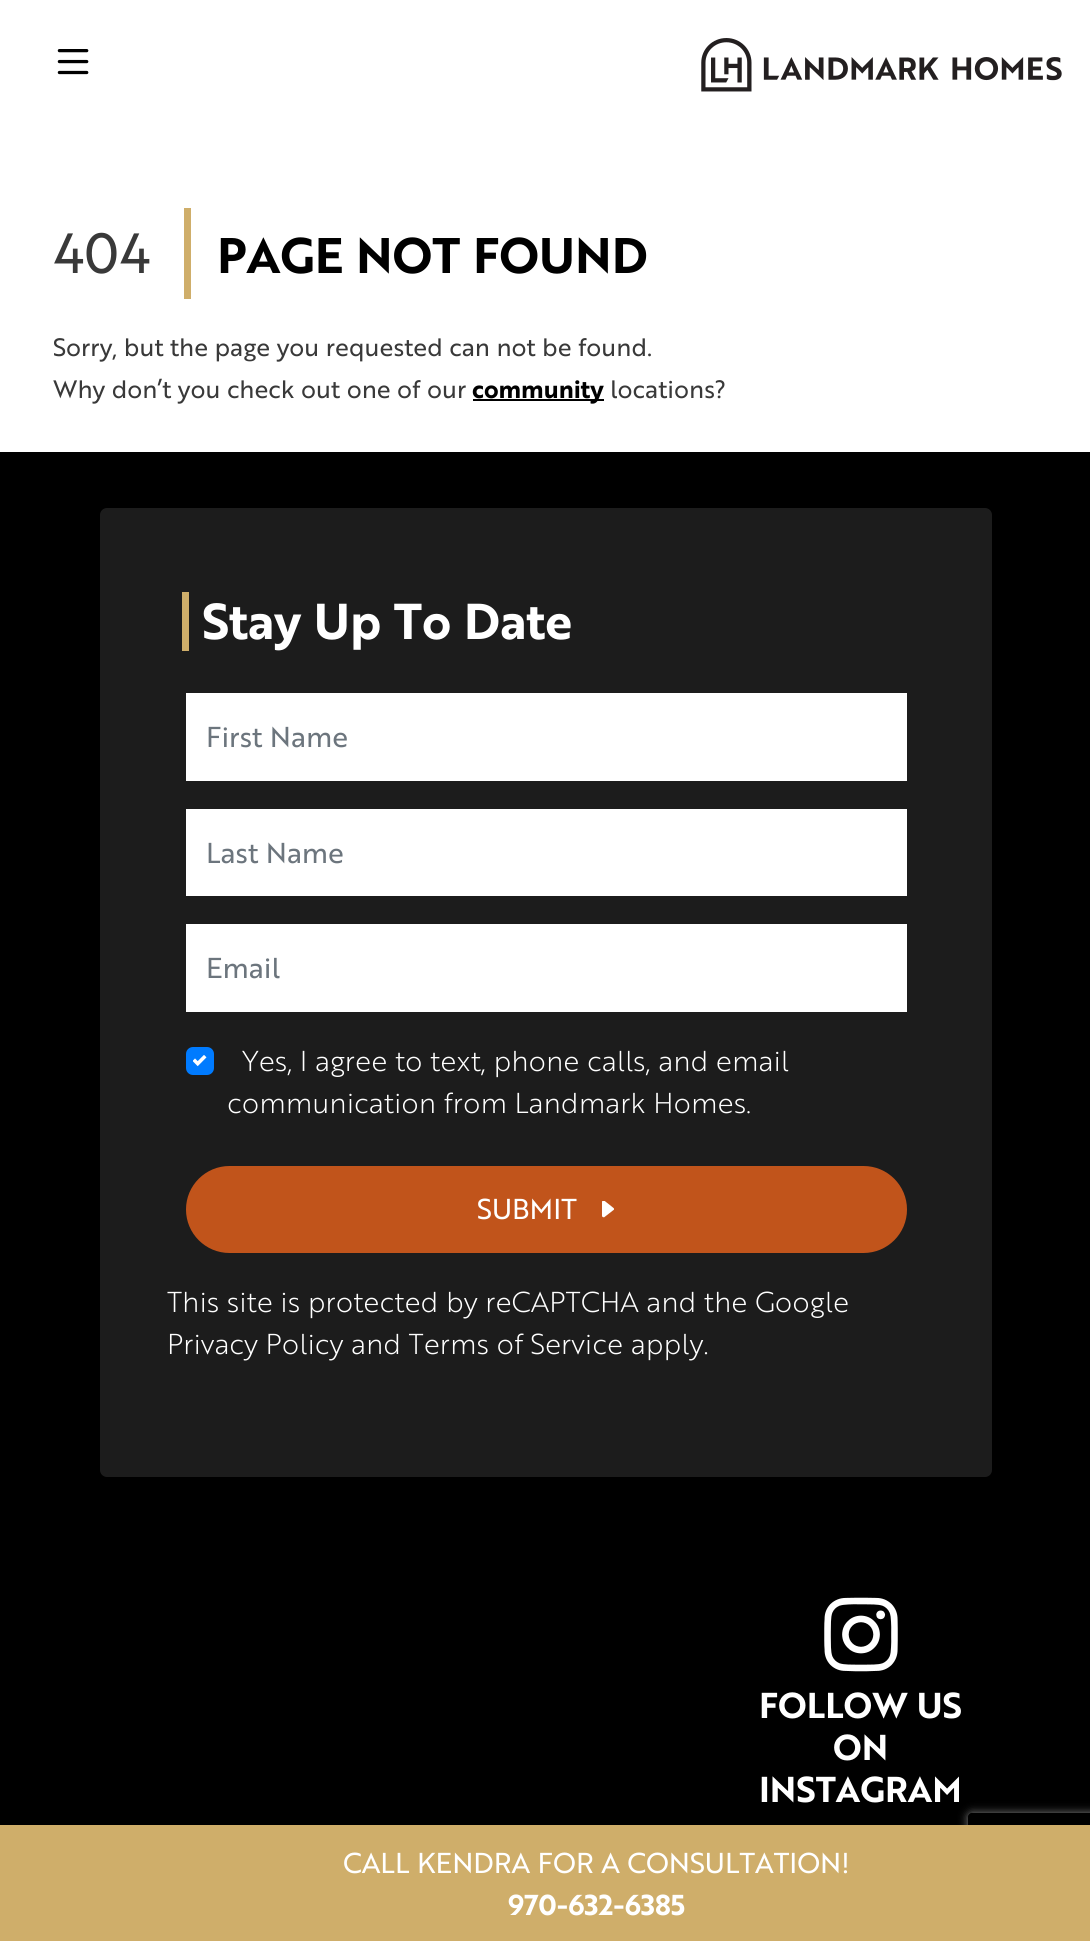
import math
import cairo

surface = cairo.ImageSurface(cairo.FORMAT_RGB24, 1090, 1941)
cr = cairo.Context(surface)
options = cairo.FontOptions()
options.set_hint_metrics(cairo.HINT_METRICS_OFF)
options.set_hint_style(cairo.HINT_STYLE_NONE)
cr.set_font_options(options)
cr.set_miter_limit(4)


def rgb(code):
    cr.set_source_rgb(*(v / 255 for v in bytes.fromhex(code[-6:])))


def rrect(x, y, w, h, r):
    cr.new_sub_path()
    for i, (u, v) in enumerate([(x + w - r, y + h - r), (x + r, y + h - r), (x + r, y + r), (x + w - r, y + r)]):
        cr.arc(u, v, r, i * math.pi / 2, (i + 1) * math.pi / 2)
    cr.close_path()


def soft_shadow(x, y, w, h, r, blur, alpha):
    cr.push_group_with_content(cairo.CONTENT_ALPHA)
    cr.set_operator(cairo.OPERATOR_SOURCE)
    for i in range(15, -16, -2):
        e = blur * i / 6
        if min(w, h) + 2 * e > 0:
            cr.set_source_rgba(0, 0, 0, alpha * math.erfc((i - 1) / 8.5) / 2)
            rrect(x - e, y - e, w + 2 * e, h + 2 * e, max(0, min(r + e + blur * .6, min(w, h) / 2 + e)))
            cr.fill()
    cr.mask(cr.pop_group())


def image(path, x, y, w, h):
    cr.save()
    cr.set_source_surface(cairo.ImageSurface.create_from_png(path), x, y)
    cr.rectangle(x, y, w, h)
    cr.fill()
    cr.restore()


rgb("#ffffff")
cr.paint()
for x, y, w, h, color in [
    (184, 208, 7, 91, "#cfae6a"),
    (473, 399, 131, 2, "#000000"),
    (0, 452, 1090, 1373, "#000000"),
]:
    rgb(color)
    cr.rectangle(x, y, w, h)
    cr.fill()
rgb("#1c1c1c")
rrect(100, 508, 892, 969, 7)
cr.fill()
for x, y, w, h, color in [
    (182, 592, 7, 59, "#cfae6a"),
    (186, 693, 721, 88, "#ffffff"),
    (186, 809, 721, 87, "#ffffff"),
    (186, 924, 721, 88, "#ffffff"),
]:
    rgb(color)
    cr.rectangle(x, y, w, h)
    cr.fill()
rgb("#007bff")
rrect(187, 1048, 26, 26, 6)
cr.fill_preserve()
cr.stroke()
image("img/1.png", 193, 1055, 14, 12)
rgb("#c1541b")
rrect(186, 1166, 721, 87, 43.5)
cr.fill()
image("img/2.png", 602, 1201, 12, 17)
image("img/3.png", 824, 1597, 74, 75)
image("img/4.png", 57, 49, 32, 26)
image("img/5.png", 701, 38, 361, 54)
cr.save()
cr.set_fill_rule(cairo.FILL_RULE_EVEN_ODD)
cr.new_path()
cr.move_to(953, 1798)
cr.line_to(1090, 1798)
cr.line_to(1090, 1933)
cr.line_to(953, 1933)
cr.close_path()
cr.move_to(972, 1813)
cr.line_to(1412, 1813)
cr.curve_to(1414, 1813, 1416, 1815, 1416, 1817)
cr.line_to(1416, 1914)
cr.curve_to(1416, 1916, 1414, 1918, 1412, 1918)
cr.line_to(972, 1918)
cr.curve_to(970, 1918, 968, 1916, 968, 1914)
cr.line_to(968, 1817)
cr.curve_to(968, 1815, 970, 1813, 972, 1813)
cr.close_path()
cr.clip()
rgb("#808080")
soft_shadow(968, 1813, 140, 105, 4, 4.5, 1)
cr.restore()
rgb("#cfae6a")
cr.rectangle(0, 1825, 1090, 116)
cr.fill()
cr.select_font_face("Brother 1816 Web")
cr.set_font_size(55)
rgb("#393939")
cr.move_to(53, 273)
cr.show_text("404")
cr.select_font_face("Brother 1816 Web", cairo.FONT_SLANT_NORMAL, cairo.FONT_WEIGHT_BOLD)
cr.set_font_size(48.6)
rgb("#000000")
cr.move_to(217, 273)
cr.show_text("PAGE NOT FOUND")
cr.select_font_face("Brother 1816 Web")
cr.set_font_size(24.5)
rgb("#393939")
cr.move_to(53, 356)
cr.show_text("Sorry, but the page you requested can not be found.")
cr.move_to(53, 398)
cr.show_text("Why don’t you check out one of our")
cr.select_font_face("Brother 1816 Web", cairo.FONT_SLANT_NORMAL, cairo.FONT_WEIGHT_BOLD)
rgb("#000000")
cr.move_to(472, 398)
cr.show_text("community")
cr.select_font_face("Brother 1816 Web")
rgb("#393939")
cr.move_to(610, 398)
cr.show_text("locations?")
cr.select_font_face("Brother 1816 Web", cairo.FONT_SLANT_NORMAL, cairo.FONT_WEIGHT_BOLD)
cr.set_font_size(49)
rgb("#ffffff")
cr.move_to(202, 639)
cr.show_text("Stay Up To Date")
cr.select_font_face("Brother 1816 Web")
cr.set_font_size(28)
rgb("#6c757d")
for x, y, s in [
    (206, 747, "First Name"),
    (206, 863, "Last Name"),
    (206, 978, "Email"),
]:
    cr.move_to(x, y)
    cr.show_text(s)
cr.select_font_face("Brother 1816 Web Light")
rgb("#ffffff")
cr.move_to(242, 1071)
cr.show_text("Yes, I agree to text, phone calls, and email")
cr.move_to(227, 1113)
cr.show_text("communication from Landmark Homes.")
cr.select_font_face("Brother 1816 Web")
cr.move_to(477, 1219)
cr.show_text("SUBMIT")
cr.select_font_face("Brother 1816 Web Light")
cr.move_to(167, 1312)
cr.show_text("This site is protected by reCAPTCHA and the Google")
cr.move_to(167, 1354)
cr.show_text("Privacy Policy and Terms of Service apply.")
cr.select_font_face("Brother 1816 Web", cairo.FONT_SLANT_NORMAL, cairo.FONT_WEIGHT_BOLD)
cr.set_font_size(35)
for x, y, s in [
    (759, 1718, "FOLLOW US"),
    (833, 1760, "ON"),
    (759, 1802, "INSTAGRAM"),
]:
    cr.move_to(x, y)
    cr.show_text(s)
cr.select_font_face("Brother 1816 Web")
cr.set_font_size(28)
cr.move_to(343, 1873)
cr.show_text("CALL KENDRA FOR A CONSULTATION!")
cr.select_font_face("Brother 1816 Web", cairo.FONT_SLANT_NORMAL, cairo.FONT_WEIGHT_BOLD)
cr.move_to(508, 1915)
cr.show_text("970-632-6385")
surface.write_to_png("page.png")
